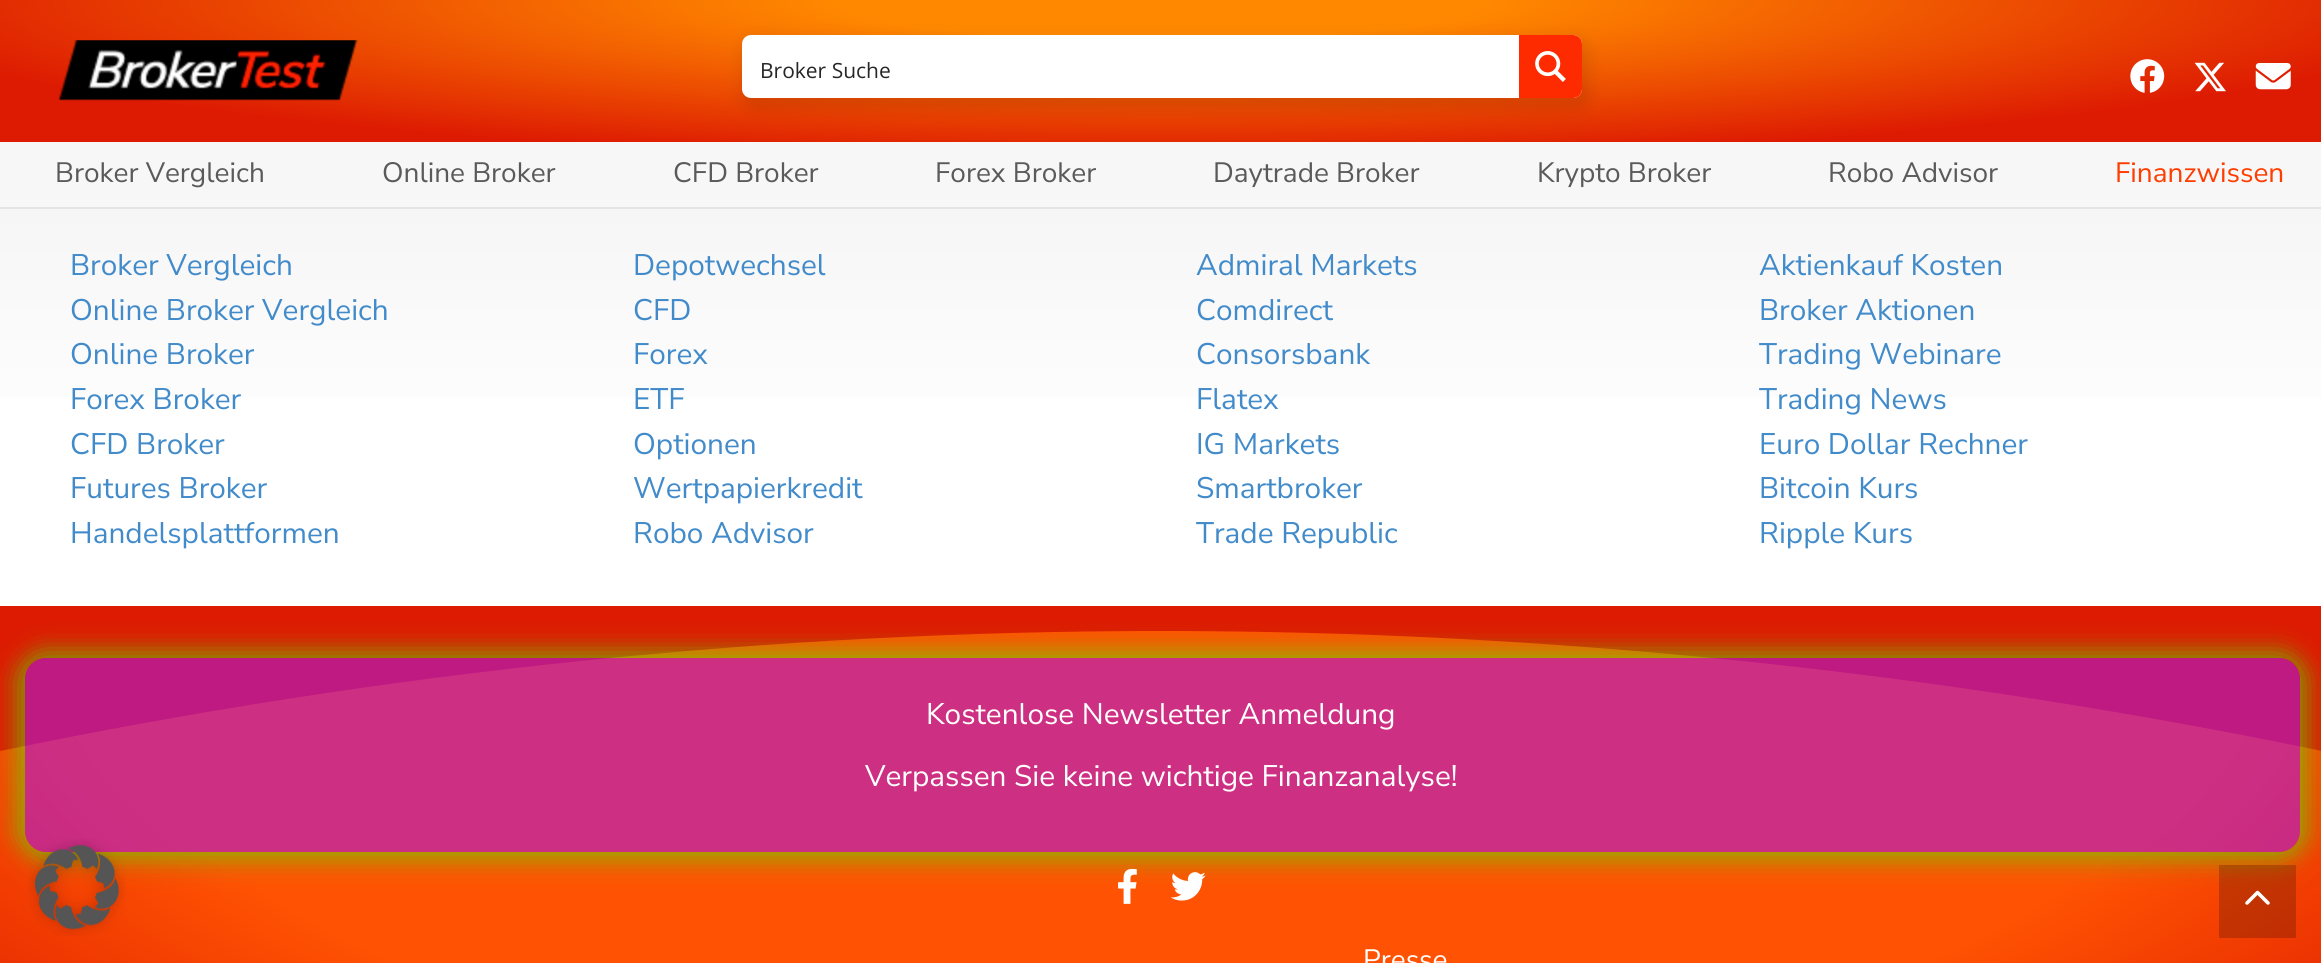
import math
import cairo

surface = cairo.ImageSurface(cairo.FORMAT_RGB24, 2321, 963)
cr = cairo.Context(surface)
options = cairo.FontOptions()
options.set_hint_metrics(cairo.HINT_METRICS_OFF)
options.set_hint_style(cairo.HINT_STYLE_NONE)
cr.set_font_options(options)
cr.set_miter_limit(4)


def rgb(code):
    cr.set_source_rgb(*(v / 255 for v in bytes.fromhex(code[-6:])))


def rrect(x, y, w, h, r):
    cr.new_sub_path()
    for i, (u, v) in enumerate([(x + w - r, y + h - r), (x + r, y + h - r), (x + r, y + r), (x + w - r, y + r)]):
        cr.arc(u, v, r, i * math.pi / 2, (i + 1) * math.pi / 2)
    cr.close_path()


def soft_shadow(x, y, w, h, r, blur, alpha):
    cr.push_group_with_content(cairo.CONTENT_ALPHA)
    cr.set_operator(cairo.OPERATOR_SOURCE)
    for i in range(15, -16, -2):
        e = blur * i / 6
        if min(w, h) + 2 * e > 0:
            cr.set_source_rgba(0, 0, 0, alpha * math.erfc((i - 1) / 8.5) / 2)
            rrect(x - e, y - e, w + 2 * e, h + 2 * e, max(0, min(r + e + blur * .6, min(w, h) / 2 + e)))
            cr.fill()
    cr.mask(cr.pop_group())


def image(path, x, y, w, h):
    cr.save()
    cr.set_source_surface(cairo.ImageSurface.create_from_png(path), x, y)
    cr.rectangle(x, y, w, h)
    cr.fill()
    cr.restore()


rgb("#ffffff")
cr.paint()
gradient = cairo.RadialGradient(0, 0, 0, 0, 0, 1)
gradient.set_matrix(cairo.Matrix(1 / 1642, 0, 0, 1 / 200, -1 * 1161 / 1642, -1 * 0 / 200))
gradient.add_color_stop_rgba(0.2, 1, 0.533, 0, 1)
gradient.add_color_stop_rgba(0.8, 0.867, 0.106, 0.008, 1)
cr.set_source(gradient)
cr.rectangle(0, 0, 2321, 142)
cr.fill()
image("img/1.png", 58, 40, 300, 61)
rgb("#000000")
soft_shadow(742, 39, 847, 70, 12, 8, 0.1)
rgb("#ffffff")
rrect(742, 35, 840, 63, 9)
cr.fill()
rgb("#ff2b00")
cr.new_path()
cr.move_to(1519, 35)
cr.line_to(1573, 35)
cr.curve_to(1578, 35, 1582, 39, 1582, 44)
cr.line_to(1582, 89)
cr.curve_to(1582, 94, 1578, 98, 1573, 98)
cr.line_to(1519, 98)
cr.close_path()
cr.fill()
image("img/2.png", 1535, 51, 31, 31)
image("img/3.png", 2130, 59, 35, 34)
image("img/4.png", 2194, 62, 32, 30)
image("img/5.png", 2255, 63, 36, 27)
rgb("#f7f7f7")
cr.rectangle(0, 142, 2321, 65)
cr.fill()
rgb("#e4e4e4")
cr.rectangle(0, 207, 2321, 2)
cr.fill()
gradient = cairo.LinearGradient(1161, 606, 1161, 152)
gradient.add_color_stop_rgba(0.3, 1, 1, 1, 1)
gradient.add_color_stop_rgba(1, 0.957, 0.957, 0.957, 1)
cr.set_source(gradient)
cr.rectangle(0, 209, 2321, 189)
cr.fill()
gradient = cairo.RadialGradient(0, 0, 0, 0, 0, 1)
gradient.set_matrix(cairo.Matrix(1 / 1642, 0, 0, 1 / 740, -1 * 1161 / 1642, -1 * 606 / 740))
gradient.add_color_stop_rgba(0.67, 1, 0.322, 0.008, 1)
gradient.add_color_stop_rgba(1, 0.867, 0.106, 0.008, 1)
cr.set_source(gradient)
cr.rectangle(0, 631, 2321, 332)
cr.fill()
rgb("#dd1b02")
cr.new_path()
cr.move_to(0, 606)
cr.line_to(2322, 606)
cr.line_to(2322, 751)
cr.curve_to(1935, 671, 1548, 631, 1161, 631)
cr.curve_to(774, 631, 387, 671, 0, 751)
cr.close_path()
cr.fill()
cr.save()
cr.set_fill_rule(cairo.FILL_RULE_EVEN_ODD)
cr.new_path()
cr.move_to(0, 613)
cr.line_to(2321, 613)
cr.line_to(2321, 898)
cr.line_to(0, 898)
cr.close_path()
cr.move_to(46, 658)
cr.line_to(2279, 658)
cr.curve_to(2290.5, 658, 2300, 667.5, 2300, 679)
cr.line_to(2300, 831)
cr.curve_to(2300, 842.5, 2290.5, 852, 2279, 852)
cr.line_to(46, 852)
cr.curve_to(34.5, 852, 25, 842.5, 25, 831)
cr.line_to(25, 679)
cr.curve_to(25, 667.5, 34.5, 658, 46, 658)
cr.close_path()
cr.clip()
rgb("#42f900")
soft_shadow(19, 653, 2286, 205, 26, 13, 0.63)
cr.restore()
cr.set_source_rgba(0.671, 0.102, 0.859, 0.59)
rrect(25, 658, 2275, 194, 21)
cr.fill()
image("img/6.png", 1118, 868, 19, 36)
image("img/7.png", 1171, 872, 35, 29)
image("img/8.png", 28, 838, 98, 98)
cr.set_source_rgba(0, 0, 0, 0.2)
cr.rectangle(2219, 865, 77, 73)
cr.fill()
image("img/9.png", 2245, 890, 25, 15)
cr.select_font_face("Open Sans")
cr.set_font_size(21)
rgb("#262626")
cr.move_to(760, 78)
cr.show_text("Broker Suche")
cr.select_font_face("Nunito Sans")
cr.set_font_size(28)
rgb("#5a5a5a")
for x, y, s in [
    (55, 182, "Broker Vergleich"),
    (382, 182, "Online Broker"),
    (673, 182, "CFD Broker"),
    (935, 182, "Forex Broker"),
    (1213, 182, "Daytrade Broker"),
    (1537, 182, "Krypto Broker"),
    (1828, 182, "Robo Advisor"),
]:
    cr.move_to(x, y)
    cr.show_text(s)
rgb("#ff3d00")
cr.move_to(2115, 182)
cr.show_text("Finanzwissen")
cr.set_font_size(29.75)
rgb("#428bca")
for x, y, s in [
    (70, 275, "Broker Vergleich"),
    (70, 320, "Online Broker Vergleich"),
    (70, 364, "Online Broker"),
    (70, 409, "Forex Broker"),
    (70, 454, "CFD Broker"),
    (70, 498, "Futures Broker"),
    (70, 543, "Handelsplattformen"),
    (633, 275, "Depotwechsel"),
    (633, 320, "CFD"),
    (633, 364, "Forex"),
    (633, 409, "ETF"),
    (633, 454, "Optionen"),
    (633, 498, "Wertpapierkredit"),
    (633, 543, "Robo Advisor"),
    (1196, 275, "Admiral Markets"),
    (1196, 320, "Comdirect"),
    (1196, 364, "Consorsbank"),
    (1196, 409, "Flatex"),
    (1196, 454, "IG Markets"),
    (1196, 498, "Smartbroker"),
    (1196, 543, "Trade Republic"),
    (1759, 275, "Aktienkauf Kosten"),
    (1759, 320, "Broker Aktionen"),
    (1759, 364, "Trading Webinare"),
    (1759, 409, "Trading News"),
    (1759, 454, "Euro Dollar Rechner"),
    (1759, 498, "Bitcoin Kurs"),
    (1759, 543, "Ripple Kurs"),
]:
    cr.move_to(x, y)
    cr.show_text(s)
rgb("#ffffff")
cr.move_to(926, 724)
cr.show_text("Kostenlose Newsletter Anmeldung")
cr.move_to(865, 786)
cr.show_text("Verpassen Sie keine wichtige Finanzanalyse!")
cr.set_font_size(28)
cr.move_to(1363, 969)
cr.show_text("Presse")
surface.write_to_png("page.png")
